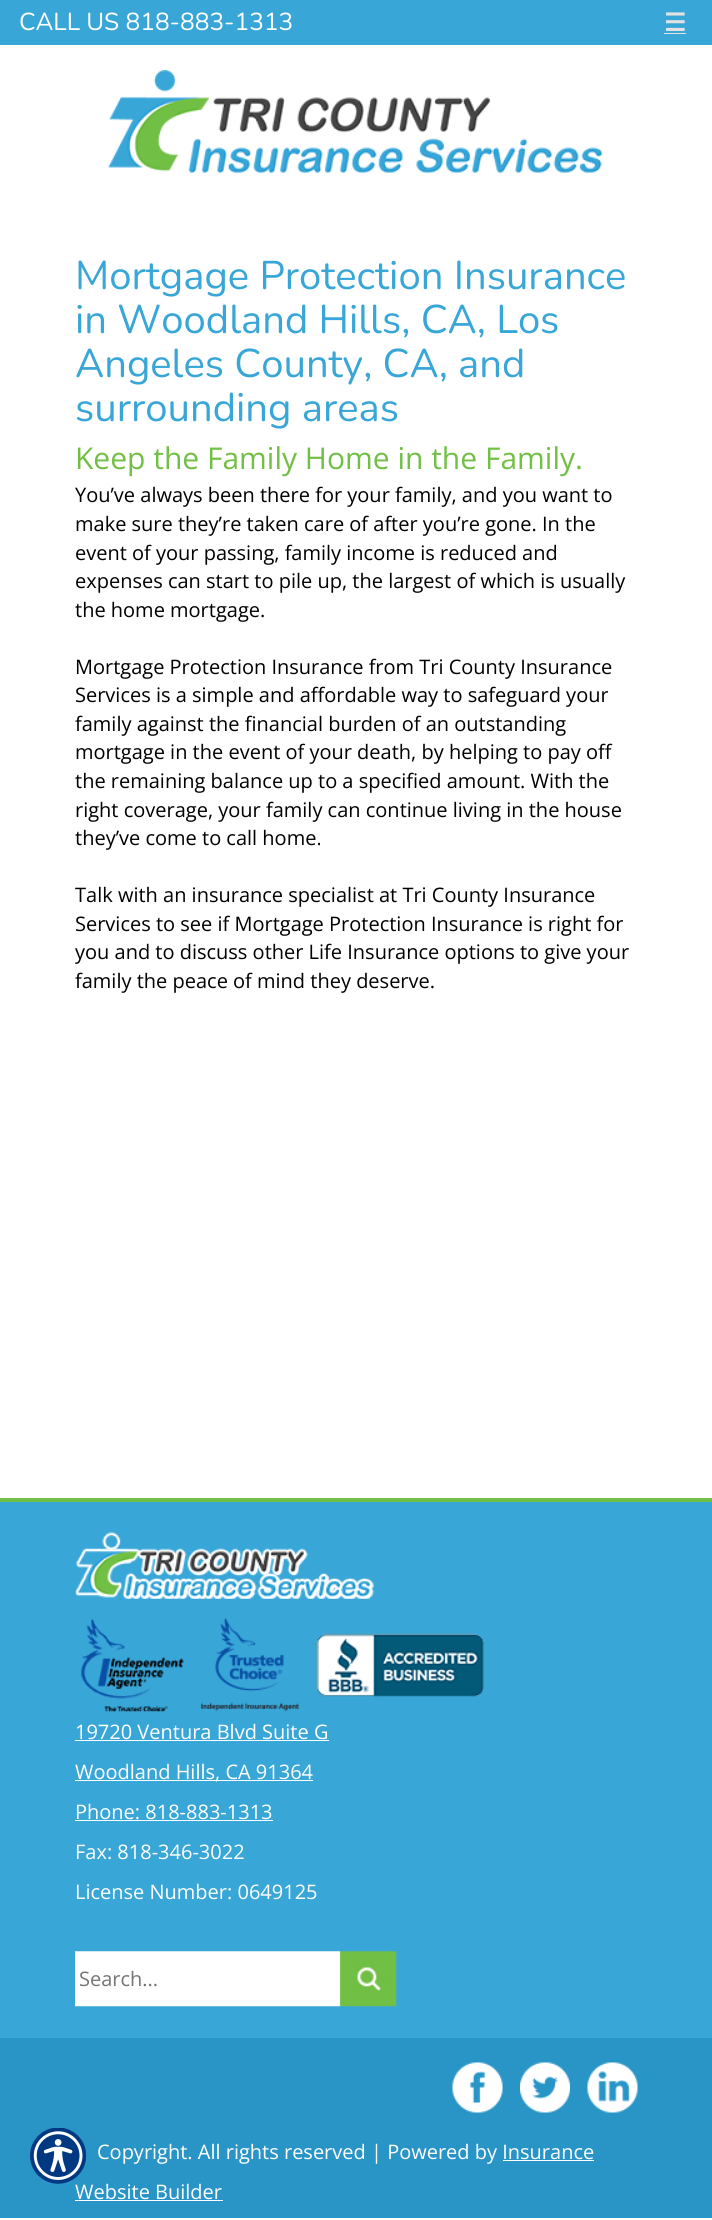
import math
import cairo

surface = cairo.ImageSurface(cairo.FORMAT_RGB24, 712, 2220)
cr = cairo.Context(surface)
options = cairo.FontOptions()
options.set_hint_metrics(cairo.HINT_METRICS_OFF)
options.set_hint_style(cairo.HINT_STYLE_NONE)
cr.set_font_options(options)
cr.set_miter_limit(4)


def rgb(code):
    cr.set_source_rgb(*(v / 255 for v in bytes.fromhex(code[-6:])))


def image(path, x, y, w, h):
    cr.save()
    cr.set_source_surface(cairo.ImageSurface.create_from_png(path), x, y)
    cr.rectangle(x, y, w, h)
    cr.fill()
    cr.restore()


rgb("#ffffff")
cr.paint()
rgb("#39a6d8")
cr.rectangle(0, 0, 712, 45)
cr.fill()
rgb("#e2e2e2")
cr.rectangle(664, 33, 22, 1)
cr.fill()
image("img/1.png", 108, 70, 495, 104)
rgb("#39a6d8")
cr.rectangle(0, 1502, 712, 536)
cr.fill()
rgb("#71bf45")
cr.rectangle(0, 1498, 712, 4)
cr.fill()
image("img/2.png", 75, 1532, 299, 67)
image("img/3.png", 81, 1618, 103, 94)
image("img/4.png", 201, 1618, 98, 94)
image("img/5.png", 316, 1633, 168, 64)
for x, y, w, h, color in [
    (75, 1740, 254, 1, "#ffffff"),
    (75, 1780, 238, 1, "#ffffff"),
    (75, 1820, 198, 1, "#ffffff"),
]:
    rgb(color)
    cr.rectangle(x, y, w, h)
    cr.fill()
image("img/6.png", 75, 1951, 322, 56)
rgb("#2995c7")
cr.rectangle(0, 2038, 712, 180)
cr.fill()
image("img/7.png", 452, 2062, 51, 51)
image("img/8.png", 520, 2062, 50, 51)
image("img/9.png", 587, 2062, 51, 51)
rgb("#ffffff")
cr.rectangle(503, 2160, 91, 1)
cr.fill()
cr.rectangle(75, 2200, 148, 1)
cr.fill()
cr.select_font_face("Nunito ExtraLight")
cr.set_font_size(24.5)
cr.move_to(19, 30)
cr.show_text("CALL US 818-883-1313")
cr.select_font_face("DejaVu Sans", cairo.FONT_SLANT_NORMAL, cairo.FONT_WEIGHT_BOLD)
rgb("#e2e2e2")
cr.move_to(664, 31)
cr.show_text("☰")
cr.select_font_face("Nunito ExtraLight")
cr.set_font_size(40)
rgb("#39a6d8")
for x, y, s in [
    (75, 289, "Mortgage Protection Insurance"),
    (75, 333, "in Woodland Hills, CA, Los"),
    (75, 377, "Angeles County, CA, and"),
    (75, 421, "surrounding areas"),
]:
    cr.move_to(x, y)
    cr.show_text(s)
cr.select_font_face("Open Sans")
cr.set_font_size(30)
rgb("#71bf45")
cr.move_to(75, 469)
cr.show_text("Keep the Family Home in the Family.")
cr.set_font_size(20)
rgb("#000000")
for x, y, s in [
    (75, 502, "You’ve always been there for your family, and you want to"),
    (75, 531, "make sure they’re taken care of after you’re gone. In the"),
    (75, 560, "event of your passing, family income is reduced and"),
    (75, 588, "expenses can start to pile up, the largest of which is usually"),
    (75, 617, "the home mortgage."),
    (75, 674, "Mortgage Protection Insurance from Tri County Insurance"),
    (75, 702, "Services is a simple and affordable way to safeguard your"),
    (75, 731, "family against the financial burden of an outstanding"),
    (75, 759, "mortgage in the event of your death, by helping to pay off"),
    (75, 788, "the remaining balance up to a specified amount. With the"),
    (75, 817, "right coverage, your family can continue living in the house"),
    (75, 845, "they’ve come to call home."),
    (75, 902, "Talk with an insurance specialist at Tri County Insurance"),
    (75, 931, "Services to see if Mortgage Protection Insurance is right for"),
    (75, 959, "you and to discuss other Life Insurance options to give your"),
    (75, 988, "family the peace of mind they deserve."),
]:
    cr.move_to(x, y)
    cr.show_text(s)
rgb("#ffffff")
for x, y, s in [
    (75, 1739, "19720 Ventura Blvd Suite G"),
    (75, 1779, "Woodland Hills, CA 91364"),
    (75, 1819, "Phone: 818-883-1313"),
    (75, 1859, "Fax: 818-346-3022"),
    (75, 1899, "License Number: 0649125"),
]:
    cr.move_to(x, y)
    cr.show_text(s)
rgb("#757575")
cr.move_to(79, 1986)
cr.show_text("Search...")
rgb("#ffffff")
cr.move_to(97, 2159)
cr.show_text("Copyright. All rights reserved | Powered by Insurance")
cr.move_to(75, 2199)
cr.show_text("Website Builder")
image("img/10.png", 30, 2128, 56, 56)
surface.write_to_png("page.png")
